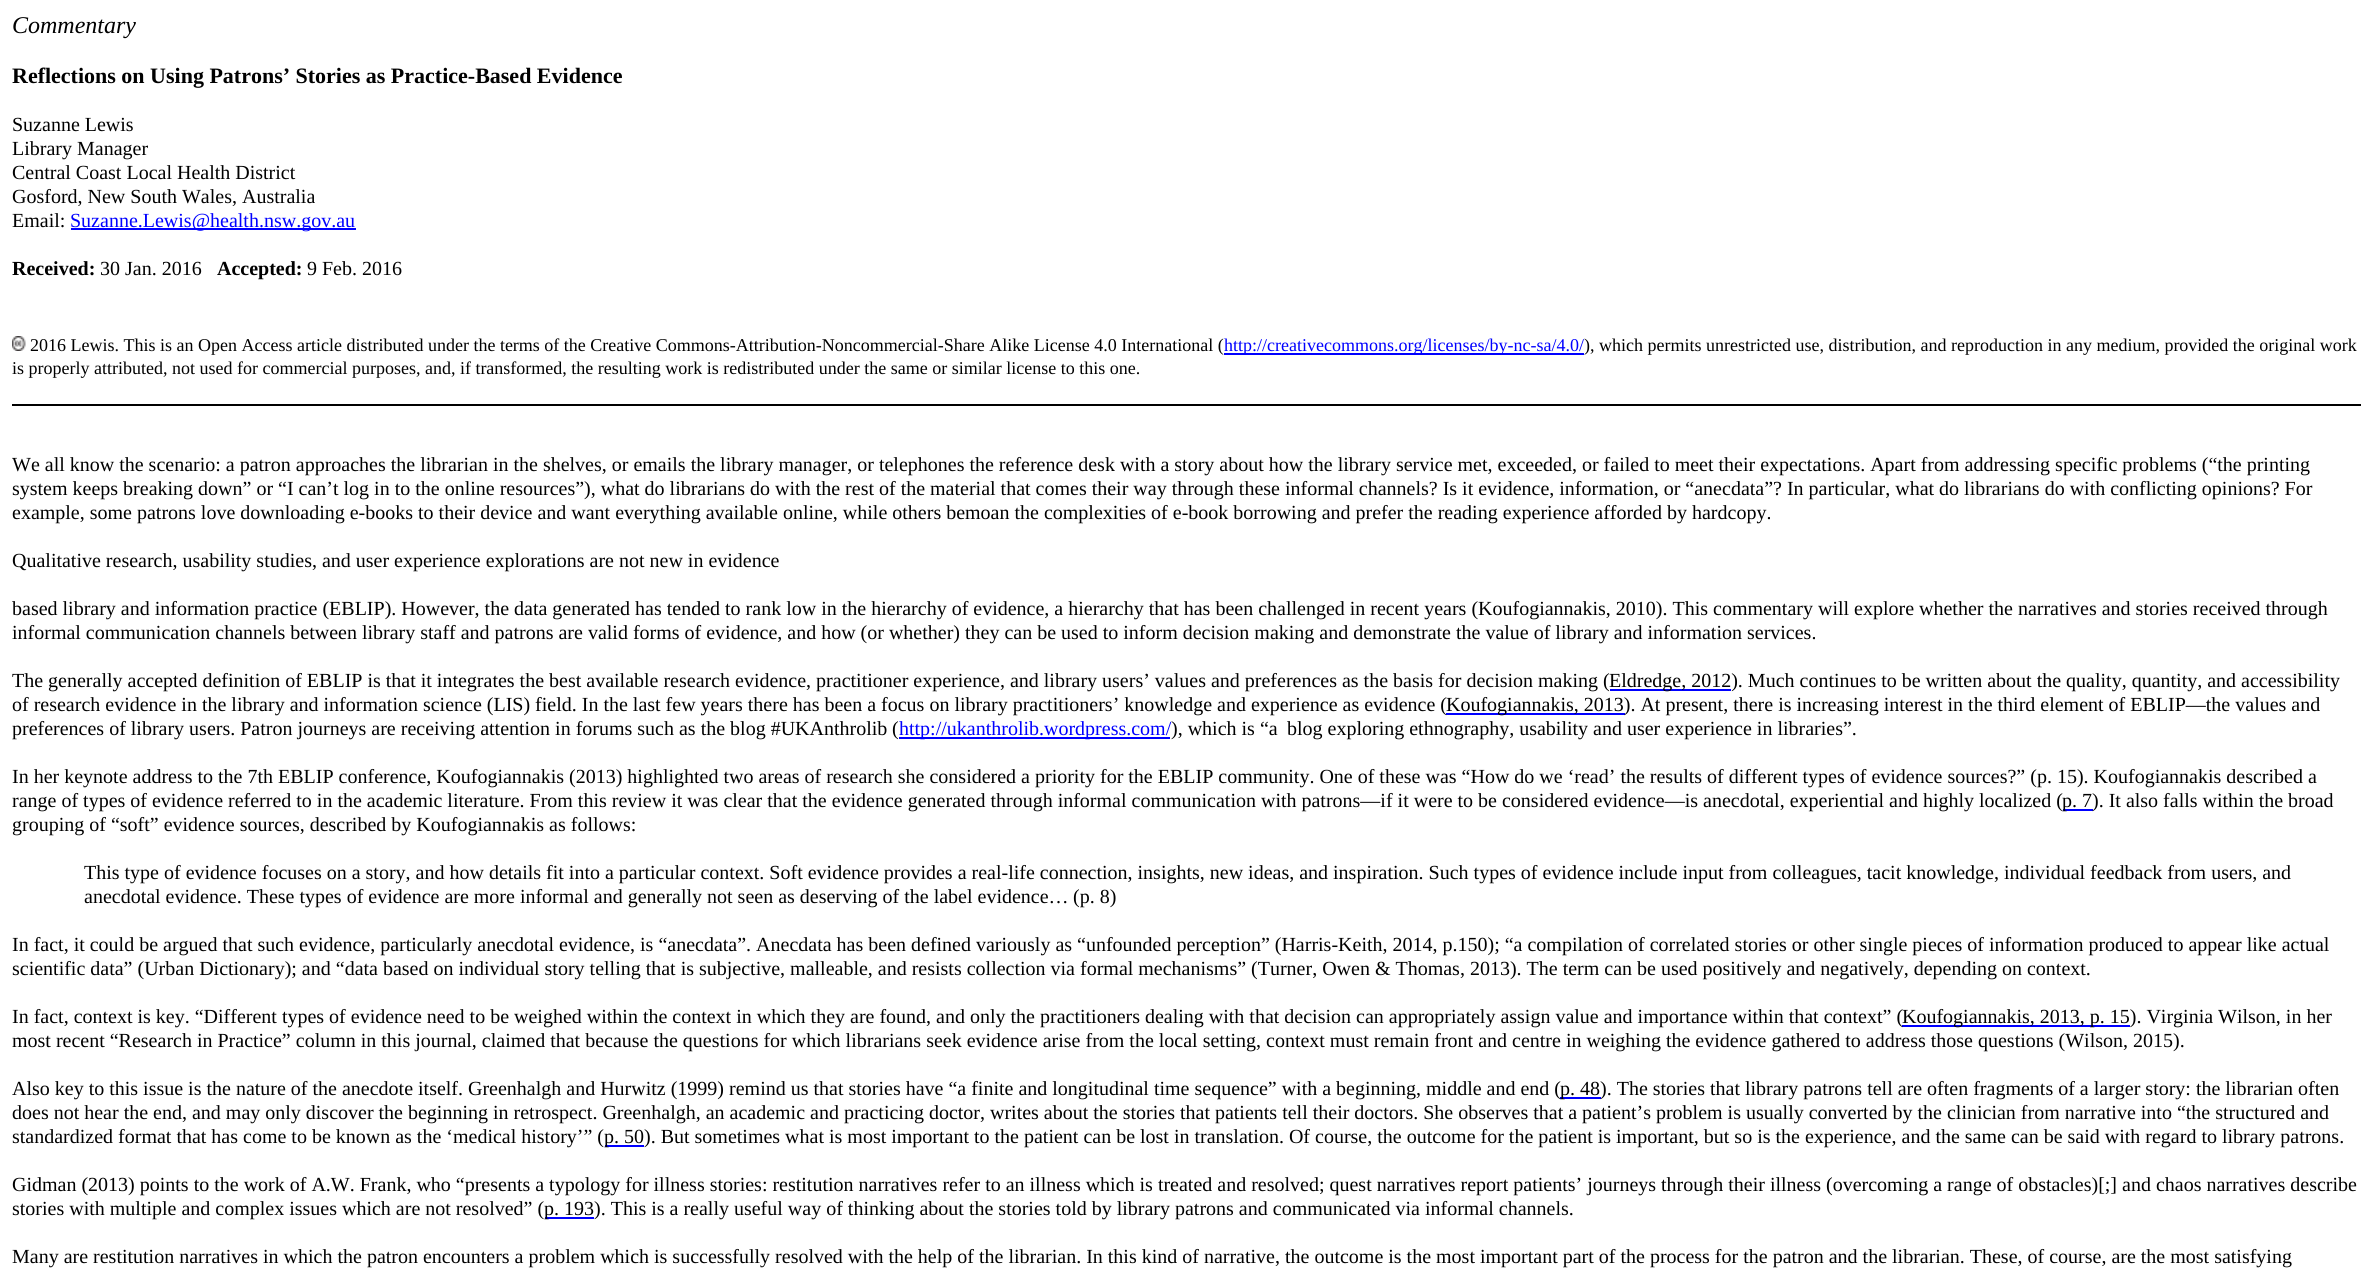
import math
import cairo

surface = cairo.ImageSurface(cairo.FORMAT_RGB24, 2372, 1269)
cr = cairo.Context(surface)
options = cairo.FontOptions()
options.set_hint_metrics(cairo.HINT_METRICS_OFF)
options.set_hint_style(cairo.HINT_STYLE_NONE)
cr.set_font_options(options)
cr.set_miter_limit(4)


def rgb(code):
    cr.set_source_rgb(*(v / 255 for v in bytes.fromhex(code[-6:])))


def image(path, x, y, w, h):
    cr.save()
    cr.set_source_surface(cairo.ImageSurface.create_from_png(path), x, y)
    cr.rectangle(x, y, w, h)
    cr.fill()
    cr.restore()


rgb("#ffffff")
cr.paint()
rgb("#0000ff")
cr.rectangle(71, 228, 285, 2)
cr.fill()
image("img/1.png", 12, 336, 14, 15)
for x, y, w, h, color in [
    (1224, 353, 360, 2, "#0000ff"),
    (12, 404, 2349, 2, "#000000"),
    (1610, 689, 121, 2, "#0000ff"),
    (1446, 713, 179, 2, "#0000ff"),
    (899, 737, 271, 2, "#0000ff"),
    (2063, 809, 30, 2, "#0000ff"),
    (1902, 1025, 228, 2, "#0000ff"),
    (1560, 1097, 41, 2, "#0000ff"),
    (605, 1145, 39, 2, "#0000ff"),
    (545, 1217, 49, 2, "#0000ff"),
]:
    rgb(color)
    cr.rectangle(x, y, w, h)
    cr.fill()
cr.select_font_face("Liberation Serif", cairo.FONT_SLANT_ITALIC)
cr.set_font_size(24)
rgb("#000000")
cr.move_to(12, 33)
cr.show_text("Commentary")
cr.select_font_face("Liberation Serif", cairo.FONT_SLANT_NORMAL, cairo.FONT_WEIGHT_BOLD)
cr.set_font_size(22)
cr.move_to(12, 83)
cr.show_text("Reflections on Using Patrons’ Stories as Practice-Based Evidence")
cr.select_font_face("Liberation Serif")
cr.set_font_size(20)
for x, y, s in [
    (12, 131, "Suzanne Lewis"),
    (12, 155, "Library Manager"),
    (12, 179, "Central Coast Local Health District"),
    (12, 203, "Gosford, New South Wales, Australia"),
    (12, 227, "Email:"),
]:
    cr.move_to(x, y)
    cr.show_text(s)
rgb("#0000ff")
cr.move_to(70, 227)
cr.show_text("Suzanne.Lewis@health.nsw.gov.au")
cr.select_font_face("Liberation Serif", cairo.FONT_SLANT_NORMAL, cairo.FONT_WEIGHT_BOLD)
rgb("#000000")
cr.move_to(12, 275)
cr.show_text("Received:")
cr.select_font_face("Liberation Serif")
cr.move_to(100, 275)
cr.show_text("30 Jan. 2016")
cr.select_font_face("Liberation Serif", cairo.FONT_SLANT_NORMAL, cairo.FONT_WEIGHT_BOLD)
cr.move_to(217, 275)
cr.show_text("Accepted:")
cr.select_font_face("Liberation Serif")
cr.move_to(307, 275)
cr.show_text("9 Feb. 2016")
cr.set_font_size(18)
cr.move_to(30, 351)
cr.show_text("2016 Lewis. This is an Open Access article distributed under the terms of the Creative Commons‐Attribution‐Noncommercial‐Share Alike License 4.0 International (")
rgb("#0000ff")
cr.move_to(1224, 351)
cr.show_text("http://creativecommons.org/licenses/by-nc-sa/4.0/")
rgb("#000000")
cr.move_to(1584, 351)
cr.show_text("), which permits unrestricted use, distribution, and reproduction in any medium, provided the original work")
cr.move_to(12, 374)
cr.show_text("is properly attributed, not used for commercial purposes, and, if transformed, the resulting work is redistributed under the same or similar license to this one.")
cr.set_font_size(20)
for x, y, s in [
    (12, 471, "We all know the scenario: a patron approaches the librarian in the shelves, or emails the library manager, or telephones the reference desk with a story about how the library service met, exceeded, or failed to meet their expectations. Apart from addressing specific problems (“the printing"),
    (12, 495, "system keeps breaking down” or “I can’t log in to the online resources”), what do librarians do with the rest of the material that comes their way through these informal channels? Is it evidence, information, or “anecdata”? In particular, what do librarians do with conflicting opinions? For"),
    (12, 519, "example, some patrons love downloading e-books to their device and want everything available online, while others bemoan the complexities of e-book borrowing and prefer the reading experience afforded by hardcopy."),
    (12, 567, "Qualitative research, usability studies, and user experience explorations are not new in evidence"),
    (12, 615, "based library and information practice (EBLIP). However, the data generated has tended to rank low in the hierarchy of evidence, a hierarchy that has been challenged in recent years (Koufogiannakis, 2010). This commentary will explore whether the narratives and stories received through"),
    (12, 639, "informal communication channels between library staff and patrons are valid forms of evidence, and how (or whether) they can be used to inform decision making and demonstrate the value of library and information services."),
    (12, 687, "The generally accepted definition of EBLIP is that it integrates the best available research evidence, practitioner experience, and library users’ values and preferences as the basis for decision making ("),
    (1609, 687, "Eldredge, 2012). Much continues to be written about the quality, quantity, and accessibility"),
    (12, 711, "of research evidence in the library and information science (LIS) field. In the last few years there has been a focus on library practitioners’ knowledge and experience as evidence ("),
    (1446, 711, "Koufogiannakis, 2013). At present, there is increasing interest in the third element of EBLIP—the values and"),
    (12, 735, "preferences of library users. Patron journeys are receiving attention in forums such as the blog #UKAnthrolib"),
    (892, 735, "("),
]:
    cr.move_to(x, y)
    cr.show_text(s)
rgb("#0000ff")
cr.move_to(899, 735)
cr.show_text("http://ukanthrolib.wordpress.com/")
rgb("#000000")
for x, y, s in [
    (1171, 735, "), which is “a"),
    (1287, 735, "blog exploring ethnography, usability and user experience in libraries”."),
    (12, 783, "In her keynote address to the 7th EBLIP conference, Koufogiannakis (2013) highlighted two areas of research she considered a priority for the EBLIP community. One of these was “How do we ‘read’ the results of different types of evidence sources?” (p. 15). Koufogiannakis described a"),
    (12, 807, "range of types of evidence referred to in the academic literature. From this review it was clear that the evidence generated through informal communication with patrons—if it were to be considered evidence—is anecdotal, experiential and highly localized ("),
    (2062, 807, "p. 7). It also falls within the broad"),
    (12, 831, "grouping of “soft” evidence sources, described by Koufogiannakis as follows:"),
    (84, 879, "This type of evidence focuses on a story, and how details fit into a particular context. Soft evidence provides a real-life connection, insights, new ideas, and inspiration. Such types of evidence include input from colleagues, tacit knowledge, individual feedback from users, and"),
    (84, 903, "anecdotal evidence. These types of evidence are more informal and generally not seen as deserving of the label evidence…"),
    (1073, 903, "(p. 8)"),
    (12, 951, "In fact, it could be argued that such evidence, particularly anecdotal evidence, is “anecdata”. Anecdata has been defined variously as “unfounded perception” (Harris-Keith, 2014, p.150); “a compilation of correlated stories or other single pieces of information produced to appear like actual"),
    (12, 975, "scientific data” (Urban Dictionary); and “data based on individual story telling that is subjective, malleable, and resists collection via formal mechanisms” (Turner, Owen & Thomas, 2013). The term can be used positively and negatively, depending on context."),
    (12, 1023, "In fact, context is key. “Different types of evidence need to be weighed within the context in which they are found, and only the practitioners dealing with that decision can appropriately assign value and importance within that context” ("),
    (1902, 1023, "Koufogiannakis, 2013, p. 15). Virginia Wilson, in her"),
    (12, 1047, "most recent “Research in Practice” column in this journal, claimed that because the questions for which librarians seek evidence arise from the local setting, context must remain front and centre in weighing the evidence gathered to address those questions (Wilson, 2015)."),
    (12, 1095, "Also key to this issue is the nature of the anecdote itself. Greenhalgh and Hurwitz (1999) remind us that stories have “a finite and longitudinal time sequence” with a beginning, middle and end ("),
    (1560, 1095, "p. 48). The stories that library patrons tell are often fragments of a larger story: the librarian often"),
    (12, 1119, "does not hear the end, and may only discover the beginning in retrospect. Greenhalgh, an academic and practicing doctor, writes about the stories that patients tell their doctors. She observes that a patient’s problem is usually converted by the clinician from narrative into “the structured and"),
    (12, 1143, "standardized format that has come to be known as the ‘medical history’” ("),
    (604, 1143, "p. 50). But sometimes what is most important to the patient can be lost in translation. Of course, the outcome for the patient is important, but so is the experience, and the same can be said with regard to library patrons."),
    (12, 1191, "Gidman (2013) points to the work of A.W. Frank, who “presents a typology for illness stories: restitution narratives refer to an illness which is treated and resolved; quest narratives report patients’ journeys through their illness (overcoming a range of obstacles)[;] and chaos narratives describe"),
    (12, 1215, "stories with multiple and complex issues which are not resolved” ("),
    (544, 1215, "p. 193). This is a really useful way of thinking about the stories told by library patrons and communicated via informal channels."),
    (12, 1263, "Many are restitution narratives in which the patron encounters a problem which is successfully resolved with the help of the librarian. In this kind of narrative, the outcome is the most important part of the process for the patron and the librarian. These, of course, are the most satisfying"),
]:
    cr.move_to(x, y)
    cr.show_text(s)
surface.write_to_png("page.png")
